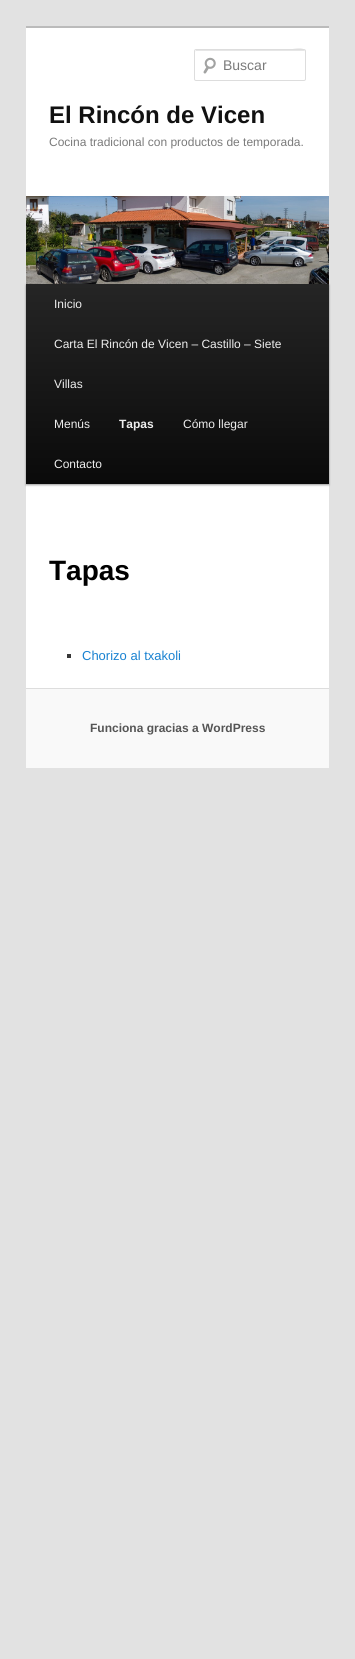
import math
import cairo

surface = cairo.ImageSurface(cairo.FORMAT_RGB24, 355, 1659)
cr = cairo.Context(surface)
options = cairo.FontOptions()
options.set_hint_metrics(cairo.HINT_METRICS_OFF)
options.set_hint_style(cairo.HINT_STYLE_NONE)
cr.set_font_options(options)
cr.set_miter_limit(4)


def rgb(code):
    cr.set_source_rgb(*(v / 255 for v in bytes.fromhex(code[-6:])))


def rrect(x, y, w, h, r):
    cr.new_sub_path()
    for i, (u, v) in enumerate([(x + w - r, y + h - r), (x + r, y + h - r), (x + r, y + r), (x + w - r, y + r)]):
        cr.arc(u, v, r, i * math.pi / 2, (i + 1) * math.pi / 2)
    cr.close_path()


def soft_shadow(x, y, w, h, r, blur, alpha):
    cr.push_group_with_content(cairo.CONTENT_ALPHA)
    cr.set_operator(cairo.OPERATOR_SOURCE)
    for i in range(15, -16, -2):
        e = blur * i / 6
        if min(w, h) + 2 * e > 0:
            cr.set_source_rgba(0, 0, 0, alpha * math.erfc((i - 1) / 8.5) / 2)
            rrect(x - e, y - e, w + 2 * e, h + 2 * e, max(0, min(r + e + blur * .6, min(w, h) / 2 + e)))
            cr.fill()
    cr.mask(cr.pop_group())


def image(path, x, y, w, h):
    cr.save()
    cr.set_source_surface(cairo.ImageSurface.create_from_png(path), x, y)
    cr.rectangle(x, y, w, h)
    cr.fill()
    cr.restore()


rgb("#e2e2e2")
cr.paint()
rgb("#ffffff")
cr.rectangle(26, 28, 303, 660)
cr.fill()
rgb("#bbbbbb")
cr.rectangle(26, 26, 303, 2)
cr.fill()
image("img/1.png", 203, 57, 13, 17)
rgb("#e6e6e6")
cr.new_path()
cr.move_to(196, 51)
cr.line_to(305, 51)
cr.line_to(305, 52)
cr.curve_to(305, 45, 290, 50, 286, 50)
cr.line_to(196, 50)
cr.line_to(195, 52)
cr.curve_to(195, 51, 195, 51, 196, 51)
cr.close_path()
cr.fill()
rrect(194.5, 49.5, 111, 31, 1.5)
rgb("#dddddd")
cr.set_line_width(1)
cr.stroke()
rgb("#000000")
soft_shadow(26, 285, 303, 200, 0, 1, 0.4)
image("img/2.png", 26, 196, 303, 88)
gradient = cairo.LinearGradient(178, 284, 178, 484)
gradient.add_color_stop_rgba(0, 0.145, 0.145, 0.145, 1)
gradient.add_color_stop_rgba(1, 0.039, 0.039, 0.039, 1)
cr.set_source(gradient)
cr.rectangle(26, 284, 303, 200)
cr.fill()
for x, y, w, h, color in [
    (67, 654, 4, 4, "#373737"),
    (26, 689, 303, 79, "#f9f9f9"),
    (26, 688, 303, 1, "#dddddd"),
]:
    rgb(color)
    cr.rectangle(x, y, w, h)
    cr.fill()
cr.select_font_face("Liberation Sans")
cr.set_font_size(14)
rgb("#7a7a7a")
cr.move_to(223, 70)
cr.show_text("Buscar")
cr.select_font_face("Liberation Sans", cairo.FONT_SLANT_NORMAL, cairo.FONT_WEIGHT_BOLD)
cr.set_font_size(24)
rgb("#111111")
cr.move_to(49, 123)
cr.show_text("El Rincón de Vicen")
cr.select_font_face("Liberation Sans")
cr.set_font_size(12)
rgb("#7a7a7a")
cr.move_to(49, 146)
cr.show_text("Cocina tradicional con productos de temporada.")
rgb("#eeeeee")
for x, y, s in [
    (54, 308, "Inicio"),
    (54, 348, "Carta El Rincón de Vicen – Castillo – Siete"),
    (54, 388, "Villas"),
    (54, 428, "Menús"),
]:
    cr.move_to(x, y)
    cr.show_text(s)
cr.select_font_face("Liberation Sans", cairo.FONT_SLANT_NORMAL, cairo.FONT_WEIGHT_BOLD)
cr.move_to(119, 428)
cr.show_text("Tapas")
cr.select_font_face("Liberation Sans")
cr.move_to(183, 428)
cr.show_text("Cómo llegar")
cr.move_to(54, 468)
cr.show_text("Contacto")
cr.select_font_face("Liberation Sans", cairo.FONT_SLANT_NORMAL, cairo.FONT_WEIGHT_BOLD)
cr.set_font_size(28)
rgb("#000000")
cr.move_to(49, 580)
cr.show_text("Tapas")
cr.select_font_face("Liberation Sans")
cr.set_font_size(13)
rgb("#1982d1")
cr.move_to(82, 660)
cr.show_text("Chorizo al txakoli")
cr.select_font_face("Liberation Sans", cairo.FONT_SLANT_NORMAL, cairo.FONT_WEIGHT_BOLD)
cr.set_font_size(12)
rgb("#555555")
cr.move_to(90, 732)
cr.show_text("Funciona gracias a WordPress")
surface.write_to_png("page.png")
